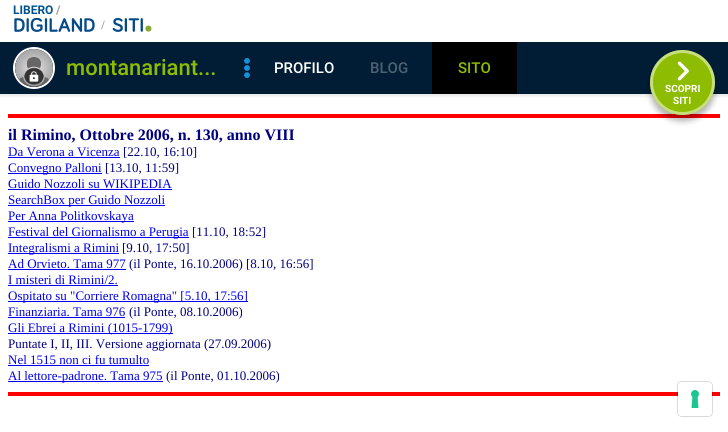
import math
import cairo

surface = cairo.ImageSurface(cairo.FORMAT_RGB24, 728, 432)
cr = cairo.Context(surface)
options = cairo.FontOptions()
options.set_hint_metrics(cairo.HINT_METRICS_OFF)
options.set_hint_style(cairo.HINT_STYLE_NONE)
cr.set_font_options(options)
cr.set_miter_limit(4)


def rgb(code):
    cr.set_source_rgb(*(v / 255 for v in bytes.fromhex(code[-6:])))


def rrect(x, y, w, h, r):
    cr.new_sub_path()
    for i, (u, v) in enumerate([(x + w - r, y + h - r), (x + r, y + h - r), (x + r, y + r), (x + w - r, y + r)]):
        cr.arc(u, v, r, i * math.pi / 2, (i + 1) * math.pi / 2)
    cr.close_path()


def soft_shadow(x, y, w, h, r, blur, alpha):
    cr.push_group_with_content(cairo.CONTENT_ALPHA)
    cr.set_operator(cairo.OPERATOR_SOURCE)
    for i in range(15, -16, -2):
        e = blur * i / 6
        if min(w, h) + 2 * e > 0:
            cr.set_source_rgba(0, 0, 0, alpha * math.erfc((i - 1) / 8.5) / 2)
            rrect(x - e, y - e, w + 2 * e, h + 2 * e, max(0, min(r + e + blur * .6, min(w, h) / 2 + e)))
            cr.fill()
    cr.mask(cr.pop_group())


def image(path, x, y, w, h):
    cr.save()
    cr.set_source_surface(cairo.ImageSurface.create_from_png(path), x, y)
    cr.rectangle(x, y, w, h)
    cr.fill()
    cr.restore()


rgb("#ffffff")
cr.paint()
cr.save()
cr.rectangle(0, 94, 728, 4)
cr.clip()
rgb("#000000")
soft_shadow(0, 0, 728, 94, 0, 3, 0.2)
cr.restore()
image("img/1.png", 14, 18, 81, 14)
image("img/2.png", 101, 20, 4, 10)
image("img/3.png", 112, 18, 40, 14)
rgb("#001d35")
cr.rectangle(0, 42, 728, 52)
cr.fill()
cr.arc(34, 68, 20, 0, 2 * math.pi)
rgb("#ffffff")
cr.stroke()
image("img/4.png", 15, 49, 38, 38)
image("img/5.png", 244, 58, 6, 20)
rgb("#000000")
cr.rectangle(432, 42, 85, 52)
cr.fill()
rgb("#ff0000")
cr.rectangle(8, 114, 712, 4)
cr.fill()
rgb("#000000")
soft_shadow(650, 56, 65, 65, 32.5, 3, 0.3)
rgb("#8ebc00")
cr.arc(682.5, 82.5, 32.5, 0, 2 * math.pi)
cr.fill()
cr.arc(682.5, 82.5, 31, 0, 2 * math.pi)
cr.set_source_rgba(1, 1, 1, 0.5)
cr.set_line_width(3)
cr.stroke()
image("img/6.png", 677, 61, 12, 20)
for x, y, w, h, color in [
    (8, 157, 112, 1, "#0000ee"),
    (8, 173, 94, 1, "#0000ee"),
    (8, 189, 164, 1, "#0000ee"),
    (8, 205, 157, 1, "#0000ee"),
    (8, 221, 126, 1, "#0000ee"),
    (8, 237, 181, 1, "#0000ee"),
    (8, 253, 111, 1, "#0000ee"),
    (8, 269, 118, 1, "#0000ee"),
    (8, 285, 110, 1, "#0000ee"),
    (8, 301, 240, 1, "#0000ee"),
    (8, 317, 117, 1, "#0000ee"),
    (8, 333, 165, 1, "#0000ee"),
    (8, 365, 141, 1, "#0000ee"),
    (8, 381, 155, 1, "#0000ee"),
    (8, 392, 712, 4, "#ff0000"),
]:
    rgb(color)
    cr.rectangle(x, y, w, h)
    cr.fill()
rrect(677.5, 381.5, 35, 35, 4.5)
cr.set_source_rgba(0, 0, 0, 0.15)
cr.set_line_width(1)
cr.stroke()
rgb("#ffffff")
rrect(678, 382, 34, 34, 4)
cr.fill()
image("img/7.png", 691, 390, 8, 18)
cr.select_font_face("Roboto", cairo.FONT_SLANT_NORMAL, cairo.FONT_WEIGHT_BOLD)
cr.set_font_size(12)
rgb("#00528f")
cr.move_to(13, 14)
cr.show_text("LIBERO")
rgb("#999999")
cr.move_to(56, 14)
cr.show_text("/")
cr.select_font_face("Roboto Medium")
cr.set_font_size(22)
rgb("#8ebc00")
cr.move_to(66, 75)
cr.show_text("montanariant...")
cr.set_font_size(15)
rgb("#ffffff")
cr.move_to(274, 73)
cr.show_text("PROFILO")
rgb("#4d6172")
cr.move_to(370, 73)
cr.show_text("BLOG")
rgb("#8ebc00")
cr.move_to(458, 73)
cr.show_text("SITO")
cr.select_font_face("Roboto", cairo.FONT_SLANT_NORMAL, cairo.FONT_WEIGHT_BOLD)
cr.set_font_size(10)
rgb("#ffffff")
cr.move_to(665, 92)
cr.show_text("SCOPRI")
cr.move_to(673, 104)
cr.show_text("SITI")
cr.select_font_face("Liberation Serif", cairo.FONT_SLANT_NORMAL, cairo.FONT_WEIGHT_BOLD)
cr.set_font_size(16)
rgb("#000080")
cr.move_to(8, 140)
cr.show_text("il Rimino, Ottobre 2006, n. 130, anno VIII")
cr.select_font_face("Liberation Serif")
cr.set_font_size(13)
rgb("#0000ee")
cr.move_to(8, 156)
cr.show_text("Da Verona a Vicenza")
rgb("#000080")
cr.move_to(123, 156)
cr.show_text("[22.10, 16:10]")
rgb("#0000ee")
cr.move_to(8, 172)
cr.show_text("Convegno Palloni")
rgb("#000080")
cr.move_to(105, 172)
cr.show_text("[13.10, 11:59]")
rgb("#0000ee")
for x, y, s in [
    (8, 188, "Guido Nozzoli su WIKIPEDIA"),
    (8, 204, "SearchBox per Guido Nozzoli"),
    (8, 220, "Per Anna Politkovskaya"),
    (8, 236, "Festival del Giornalismo a Perugia"),
]:
    cr.move_to(x, y)
    cr.show_text(s)
rgb("#000080")
cr.move_to(192, 236)
cr.show_text("[11.10, 18:52]")
rgb("#0000ee")
cr.move_to(8, 252)
cr.show_text("Integralismi a Rimini")
rgb("#000080")
cr.move_to(122, 252)
cr.show_text("[9.10, 17:50]")
rgb("#0000ee")
cr.move_to(8, 268)
cr.show_text("Ad Orvieto. Tama 977")
rgb("#000080")
cr.move_to(129, 268)
cr.show_text("(il Ponte, 16.10.2006) [8.10, 16:56]")
rgb("#0000ee")
for x, y, s in [
    (8, 284, "I misteri di Rimini/2."),
    (8, 300, "Ospitato su \"Corriere Romagna\" [5.10, 17:56]"),
    (8, 316, "Finanziaria. Tama 976"),
]:
    cr.move_to(x, y)
    cr.show_text(s)
rgb("#000080")
cr.move_to(129, 316)
cr.show_text("(il Ponte, 08.10.2006)")
rgb("#0000ee")
cr.move_to(8, 332)
cr.show_text("Gli Ebrei a Rimini (1015-1799)")
rgb("#000080")
cr.move_to(8, 348)
cr.show_text("Puntate I, II, III. Versione aggiornata (27.09.2006)")
rgb("#0000ee")
cr.move_to(8, 364)
cr.show_text("Nel 1515 non ci fu tumulto")
cr.move_to(8, 380)
cr.show_text("Al lettore-padrone. Tama 975")
rgb("#000080")
cr.move_to(166, 380)
cr.show_text("(il Ponte, 01.10.2006)")
surface.write_to_png("page.png")
